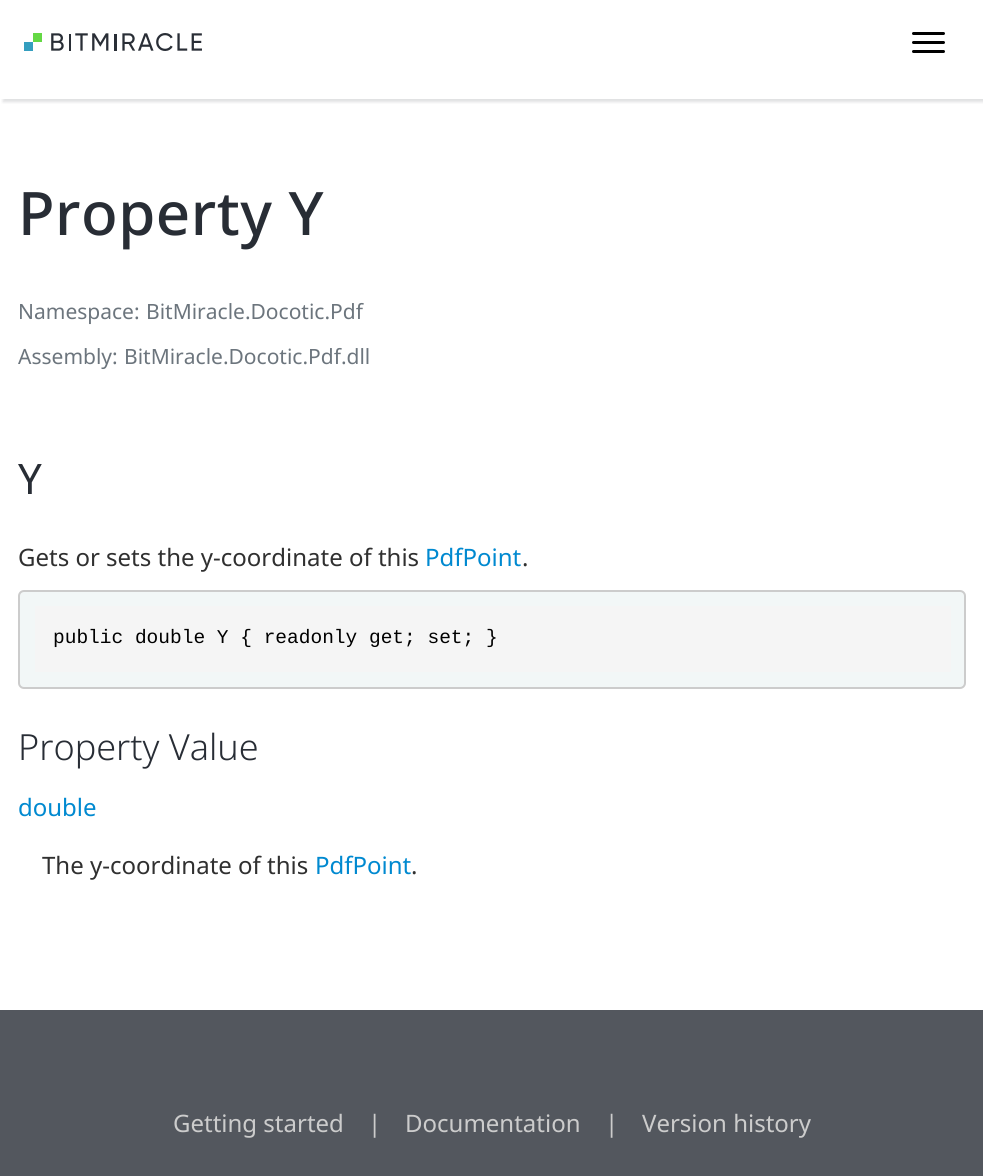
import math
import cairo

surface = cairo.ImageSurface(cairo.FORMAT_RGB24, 983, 1176)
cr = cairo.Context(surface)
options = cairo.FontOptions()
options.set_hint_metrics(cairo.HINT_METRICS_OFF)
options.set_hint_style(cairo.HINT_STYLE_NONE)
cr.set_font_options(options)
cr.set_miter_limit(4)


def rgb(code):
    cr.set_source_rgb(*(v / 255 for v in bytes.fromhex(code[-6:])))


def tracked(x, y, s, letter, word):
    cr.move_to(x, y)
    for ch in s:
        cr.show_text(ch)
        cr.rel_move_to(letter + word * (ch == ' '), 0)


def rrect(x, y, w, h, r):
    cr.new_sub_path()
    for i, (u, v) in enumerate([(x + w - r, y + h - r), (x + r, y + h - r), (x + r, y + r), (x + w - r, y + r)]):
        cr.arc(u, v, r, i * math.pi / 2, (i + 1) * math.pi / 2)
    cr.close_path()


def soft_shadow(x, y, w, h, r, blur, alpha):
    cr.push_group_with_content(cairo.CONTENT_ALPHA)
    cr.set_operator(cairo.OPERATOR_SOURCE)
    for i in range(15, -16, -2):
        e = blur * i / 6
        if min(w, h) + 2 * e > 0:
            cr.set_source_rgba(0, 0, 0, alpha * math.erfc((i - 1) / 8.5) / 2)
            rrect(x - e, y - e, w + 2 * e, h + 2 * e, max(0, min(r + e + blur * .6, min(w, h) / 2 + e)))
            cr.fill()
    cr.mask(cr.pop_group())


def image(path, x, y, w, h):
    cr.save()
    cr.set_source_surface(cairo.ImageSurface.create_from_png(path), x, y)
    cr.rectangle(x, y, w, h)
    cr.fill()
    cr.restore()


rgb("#ffffff")
cr.paint()
cr.save()
cr.rectangle(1, 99, 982, 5)
cr.clip()
rgb("#282d35")
soft_shadow(3, -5, 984, 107, 0, 1.5, 0.15)
cr.restore()
image("img/1.png", 24, 33, 178, 18)
rgb("#000000")
rrect(912, 32, 33, 3, 1.5)
cr.fill()
rrect(912, 41, 33, 3, 1.5)
cr.fill()
rrect(912, 50, 33, 3, 1.5)
cr.fill()
rgb("#f2f7f7")
rrect(19, 591, 946, 97, 5)
cr.fill_preserve()
rgb("#cccccc")
cr.stroke()
rgb("#f5f5f5")
cr.rectangle(35, 606, 916, 66)
cr.fill()
rgb("#53575e")
cr.rectangle(0, 1010, 983, 166)
cr.fill()
cr.select_font_face("Noto Sans Medium")
cr.set_font_size(60)
rgb("#282d35")
tracked(18, 235, "Property Y", 0.5, 0)
cr.select_font_face("Noto Sans")
cr.set_font_size(21)
rgb("#6c757d")
for x, y, s in [
    (18, 319, "Namespace:"),
    (146, 319, "BitMiracle.Docotic.Pdf"),
    (18, 364, "Assembly:"),
    (124, 364, "BitMiracle.Docotic.Pdf.dll"),
]:
    cr.move_to(x, y)
    cr.show_text(s)
cr.set_font_size(42)
rgb("#282d35")
cr.move_to(18, 494)
cr.show_text("Y")
cr.set_font_size(24)
rgb("#303030")
cr.move_to(18, 566)
cr.show_text("Gets or sets the y-coordinate of this")
rgb("#0089d0")
cr.move_to(425, 566)
cr.show_text("PdfPoint")
rgb("#303030")
cr.move_to(522, 566)
cr.show_text(".")
cr.select_font_face("Liberation Mono")
cr.set_font_size(19.5)
rgb("#000000")
cr.move_to(53, 643)
cr.show_text("public double Y { readonly get; set; }")
cr.select_font_face("Noto Sans Light")
cr.set_font_size(36)
rgb("#282d35")
cr.move_to(18, 760)
cr.show_text("Property Value")
cr.select_font_face("Noto Sans")
cr.set_font_size(24)
rgb("#0089d0")
cr.move_to(18, 816)
cr.show_text("double")
rgb("#303030")
cr.move_to(42, 874)
cr.show_text("The y-coordinate of this")
rgb("#0089d0")
cr.move_to(315, 874)
cr.show_text("PdfPoint")
rgb("#303030")
cr.move_to(411, 874)
cr.show_text(".")
rgb("#cccccc")
for x, y, s in [
    (173, 1132, "Getting started"),
    (368, 1132, "|"),
    (405, 1132, "Documentation"),
    (605, 1132, "|"),
    (642, 1132, "Version history"),
]:
    cr.move_to(x, y)
    cr.show_text(s)
surface.write_to_png("page.png")
